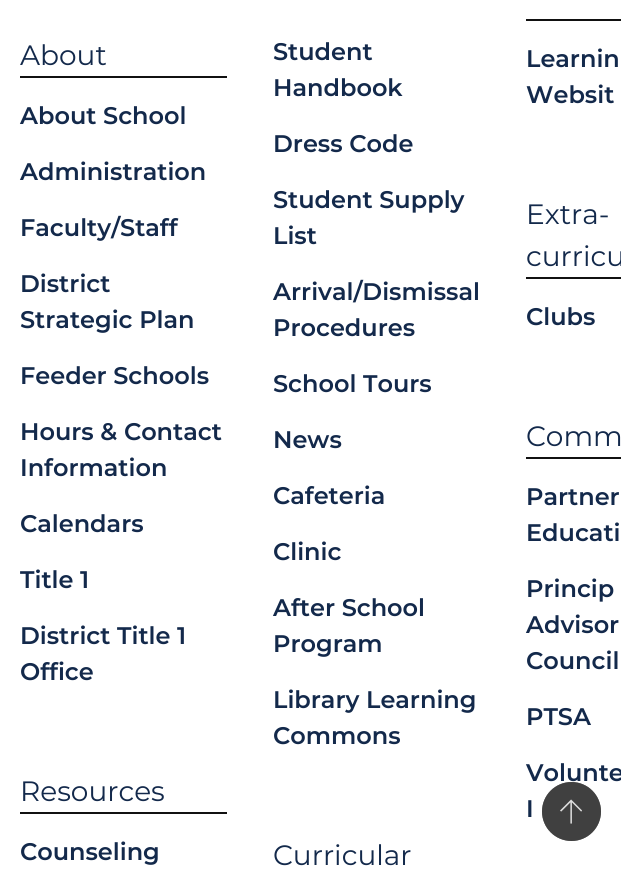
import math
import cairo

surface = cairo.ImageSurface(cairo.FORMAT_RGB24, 621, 881)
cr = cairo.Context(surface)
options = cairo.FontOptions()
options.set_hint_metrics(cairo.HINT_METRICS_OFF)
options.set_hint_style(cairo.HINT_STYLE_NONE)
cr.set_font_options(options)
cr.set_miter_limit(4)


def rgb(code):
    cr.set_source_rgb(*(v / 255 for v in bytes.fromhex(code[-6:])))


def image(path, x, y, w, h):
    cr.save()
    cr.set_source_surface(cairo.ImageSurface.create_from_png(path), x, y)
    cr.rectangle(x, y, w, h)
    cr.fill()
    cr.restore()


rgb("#ffffff")
cr.paint()
for x, y, w, h, color in [
    (20, 812, 207, 2, "#111111"),
    (20, 76, 207, 2, "#111111"),
    (526, 19, 95, 2, "#111111"),
    (526, 277, 95, 2, "#111111"),
    (526, 457, 95, 2, "#111111"),
]:
    rgb(color)
    cr.rectangle(x, y, w, h)
    cr.fill()
cr.set_source_rgba(0.224, 0.22, 0.22, 0.8)
cr.arc(571.5, 811.5, 29.5, 0, 2 * math.pi)
cr.fill()
image("img/1.png", 560, 799, 22, 25)
cr.arc(571.5, 811.5, 29.5, 0, 2 * math.pi)
cr.fill()
image("img/2.png", 560, 799, 22, 25)
cr.select_font_face("Montserrat SemiBold")
cr.set_font_size(24)
rgb("#13294b")
for x, y, s in [
    (273, 60, "Student"),
    (273, 96, "Handbook"),
    (273, 152, "Dress Code"),
    (273, 208, "Student Supply"),
    (273, 244, "List"),
    (273, 300, "Arrival/Dismissal"),
    (273, 336, "Procedures"),
    (273, 392, "School Tours"),
    (273, 448, "News"),
    (273, 504, "Cafeteria"),
    (273, 560, "Clinic"),
    (273, 616, "After School"),
    (273, 652, "Program"),
    (273, 708, "Library Learning"),
    (273, 744, "Commons"),
]:
    cr.move_to(x, y)
    cr.show_text(s)
cr.select_font_face("Montserrat")
cr.set_font_size(28)
cr.move_to(20, 801)
cr.show_text("Resources")
cr.select_font_face("Montserrat SemiBold")
cr.set_font_size(24)
cr.move_to(20, 860)
cr.show_text("Counseling")
cr.select_font_face("Montserrat")
cr.set_font_size(28)
cr.move_to(20, 65)
cr.show_text("About")
cr.select_font_face("Montserrat SemiBold")
cr.set_font_size(24)
for x, y, s in [
    (20, 124, "About School"),
    (20, 180, "Administration"),
    (20, 236, "Faculty/Staff"),
    (20, 292, "District"),
    (20, 328, "Strategic Plan"),
    (20, 384, "Feeder Schools"),
    (20, 440, "Hours & Contact"),
    (20, 476, "Information"),
    (20, 532, "Calendars"),
    (20, 588, "Title 1"),
    (20, 644, "District Title 1"),
    (20, 680, "Office"),
    (526, 67, "Learnin"),
    (526, 103, "Websit"),
]:
    cr.move_to(x, y)
    cr.show_text(s)
cr.select_font_face("Montserrat")
cr.set_font_size(28)
for x, y, s in [
    (273, 865, "Curricular"),
    (526, 224, "Extra-"),
    (526, 266, "curricu"),
]:
    cr.move_to(x, y)
    cr.show_text(s)
cr.select_font_face("Montserrat SemiBold")
cr.set_font_size(24)
cr.move_to(526, 325)
cr.show_text("Clubs")
cr.select_font_face("Montserrat")
cr.set_font_size(28)
cr.move_to(526, 446)
cr.show_text("Comm")
cr.select_font_face("Montserrat SemiBold")
cr.set_font_size(24)
for x, y, s in [
    (526, 505, "Partner"),
    (526, 541, "Educati"),
    (526, 597, "Princip"),
    (526, 633, "Advisor"),
    (526, 669, "Council"),
    (526, 725, "PTSA"),
    (526, 781, "Volunte"),
    (526, 817, "I"),
]:
    cr.move_to(x, y)
    cr.show_text(s)
surface.write_to_png("page.png")
